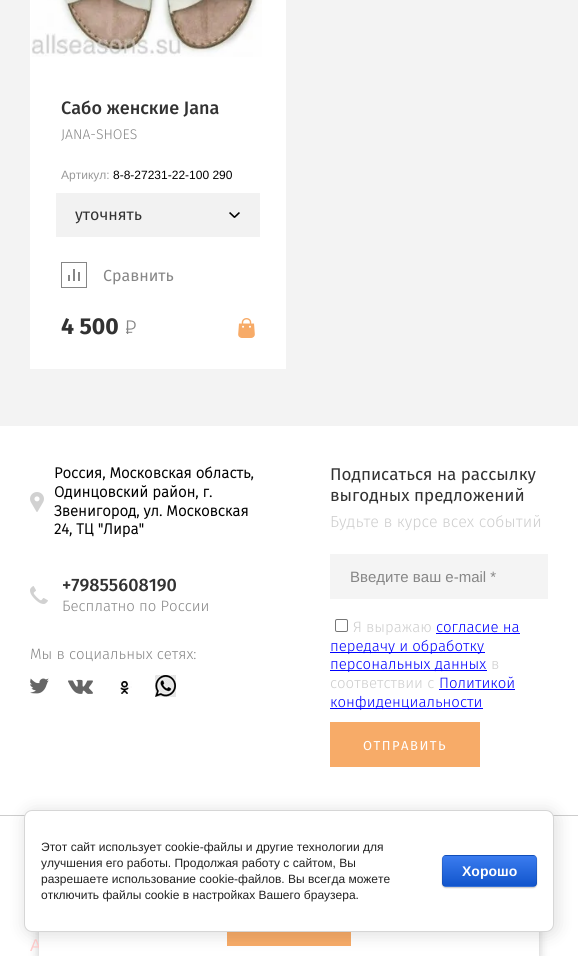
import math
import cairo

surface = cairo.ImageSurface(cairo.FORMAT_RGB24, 578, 956)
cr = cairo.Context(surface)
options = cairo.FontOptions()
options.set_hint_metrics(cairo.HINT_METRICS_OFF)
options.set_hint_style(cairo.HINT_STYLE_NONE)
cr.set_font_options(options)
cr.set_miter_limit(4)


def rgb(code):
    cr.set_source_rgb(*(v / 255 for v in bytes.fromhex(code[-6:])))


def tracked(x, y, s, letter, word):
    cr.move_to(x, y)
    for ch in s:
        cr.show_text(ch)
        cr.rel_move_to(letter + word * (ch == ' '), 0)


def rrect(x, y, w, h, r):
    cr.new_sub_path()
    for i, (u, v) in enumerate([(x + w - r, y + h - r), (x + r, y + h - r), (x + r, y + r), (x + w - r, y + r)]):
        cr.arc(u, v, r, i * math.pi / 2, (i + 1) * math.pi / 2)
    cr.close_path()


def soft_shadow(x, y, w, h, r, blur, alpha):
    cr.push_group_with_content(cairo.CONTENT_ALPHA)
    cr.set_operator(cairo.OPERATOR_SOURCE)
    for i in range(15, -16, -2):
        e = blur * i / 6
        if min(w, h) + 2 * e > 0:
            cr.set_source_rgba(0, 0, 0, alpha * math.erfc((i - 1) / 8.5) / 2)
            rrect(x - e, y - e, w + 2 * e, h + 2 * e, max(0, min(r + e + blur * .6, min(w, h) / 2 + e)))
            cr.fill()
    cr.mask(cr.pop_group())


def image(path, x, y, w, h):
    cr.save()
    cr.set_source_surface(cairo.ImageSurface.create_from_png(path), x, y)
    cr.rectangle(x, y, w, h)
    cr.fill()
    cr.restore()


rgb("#f3f3f3")
cr.paint()
rgb("#ffffff")
cr.rectangle(30, 0, 256, 369)
cr.fill()
image("img/1.png", 31, 0, 231, 57)
rgb("#f2f2f2")
cr.rectangle(56, 193, 204, 44)
cr.fill()
image("img/2.png", 229, 212, 11, 6)
image("img/3.png", 68, 269, 12, 12)
cr.rectangle(61.5, 262.5, 25, 25)
rgb("#868686")
cr.set_line_width(1)
cr.stroke()
image("img/4.png", 126, 320, 10, 14)
image("img/5.png", 238, 318, 17, 20)
rgb("#ffffff")
cr.rectangle(0, 426, 578, 530)
cr.fill()
rgb("#cdcdcd")
cr.rectangle(0, 815, 578, 1)
cr.fill()
image("img/6.png", 30, 492, 14, 20)
image("img/7.png", 30, 586, 18, 18)
image("img/8.png", 30, 678, 19, 16)
image("img/9.png", 68, 679, 25, 15)
image("img/10.png", 120, 681, 12, 13)
image("img/11.png", 155, 675, 21, 22)
rgb("#f4f4f4")
cr.rectangle(330, 554, 218, 45)
cr.fill()
rrect(335.5, 619.5, 12, 12, 1.5)
rgb("#767676")
cr.stroke()
for x, y, w, h, color in [
    (436, 633, 84, 1, "#0000ff"),
    (330, 652, 155, 1, "#0000ff"),
    (330, 670, 157, 1, "#0000ff"),
    (439, 689, 76, 1, "#0000ff"),
    (330, 708, 153, 1, "#0000ff"),
    (330, 722, 150, 45, "#f7ab68"),
]:
    rgb(color)
    cr.rectangle(x, y, w, h)
    cr.fill()
rgb("#000000")
soft_shadow(39, 845, 500, 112, 0, 5, 0.23)
cr.select_font_face("Fira Sans Medium")
cr.set_font_size(18)
rgb("#323232")
cr.move_to(61, 114)
cr.show_text("Сабо женские Jana")
cr.select_font_face("Fira Sans Light")
cr.set_font_size(14)
rgb("#868686")
cr.move_to(61, 139)
cr.show_text("JANA-SHOES")
cr.select_font_face("Liberation Sans")
cr.set_font_size(12)
rgb("#999999")
cr.move_to(61, 179)
cr.show_text("Артикул:")
rgb("#000000")
cr.move_to(113, 179)
cr.show_text("8-8-27231-22-100 290")
cr.select_font_face("Fira Sans")
cr.set_font_size(16)
rgb("#323232")
cr.move_to(75, 220)
cr.show_text("уточнять")
rgb("#868686")
cr.move_to(103, 281)
cr.show_text("Сравнить")
cr.select_font_face("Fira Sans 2", cairo.FONT_SLANT_NORMAL, cairo.FONT_WEIGHT_BOLD)
cr.set_font_size(23)
rgb("#323232")
cr.move_to(61, 334)
cr.show_text("4 500")
cr.select_font_face("Fira Sans", cairo.FONT_SLANT_NORMAL, cairo.FONT_WEIGHT_BOLD)
cr.set_font_size(15)
rgb("#000000")
for x, y, s in [
    (54, 478, "Россия, Московская область,"),
    (54, 497, "Одинцовский район, г."),
    (54, 516, "Звенигород, ул. Московская"),
    (54, 534, "24, ТЦ \"Лира\""),
]:
    cr.move_to(x, y)
    cr.show_text(s)
cr.select_font_face("Fira Sans Medium")
cr.set_font_size(18)
rgb("#323232")
cr.move_to(62, 591)
cr.show_text("+79855608190")
cr.select_font_face("Fira Sans Light")
cr.set_font_size(15)
rgb("#868686")
cr.move_to(62, 611)
cr.show_text("Бесплатно по России")
cr.move_to(30, 659)
cr.show_text("Мы в социальных сетях:")
cr.select_font_face("Fira Sans")
cr.set_font_size(17)
rgb("#323232")
cr.move_to(330, 480)
cr.show_text("Подписаться на рассылку")
cr.move_to(330, 501)
cr.show_text("выгодных предложений")
cr.select_font_face("Fira Sans Light")
cr.set_font_size(16)
rgb("#cdcdcd")
cr.move_to(330, 527)
cr.show_text("Будьте в курсе всех событий")
cr.select_font_face("Liberation Sans")
cr.set_font_size(15)
rgb("#868686")
cr.move_to(350, 582)
cr.show_text("Введите ваш e-mail *")
cr.select_font_face("Fira Sans Light")
rgb("#cdcdcd")
cr.move_to(353, 632)
cr.show_text("Я выражаю")
rgb("#0000ff")
for x, y, s in [
    (436, 632, "согласие на"),
    (330, 651, "передачу и обработку"),
    (330, 669, "персональных данных"),
]:
    cr.move_to(x, y)
    cr.show_text(s)
rgb("#cdcdcd")
cr.move_to(491, 669)
cr.show_text("в")
cr.move_to(330, 688)
cr.show_text("соответствии с")
rgb("#0000ff")
cr.move_to(439, 688)
cr.show_text("Политикой")
cr.move_to(330, 707)
cr.show_text("конфиденциальности")
cr.select_font_face("Fira Sans")
cr.set_font_size(13)
rgb("#ffffff")
tracked(363, 750, "ОТПРАВИТЬ", 1.5, 0)
cr.select_font_face("Liberation Sans")
cr.set_font_size(17)
rgb("#ffcccc")
cr.move_to(30, 951)
cr.show_text("A")
rgb("#ffffff")
cr.rectangle(39, 932, 500, 24)
cr.fill()
rgb("#f7ab68")
cr.rectangle(227, 932, 124, 14)
cr.fill()
rgb("#000000")
soft_shadow(26, 812, 530, 122, 8, 9, 0.14)
rgb("#ffffff")
rrect(24.5, 810.5, 529, 121, 7.5)
cr.fill_preserve()
rgb("#d6d6d6")
cr.stroke()
cr.set_font_size(12)
rgb("#212121")
for x, y, s in [
    (41, 851, "Этот сайт использует cookie-файлы и другие технологии для"),
    (41, 867, "улучшения его работы. Продолжая работу с сайтом, Вы"),
    (41, 883, "разрешаете использование cookie-файлов. Вы всегда можете"),
    (41, 899, "отключить файлы cookie в настройках Вашего браузера."),
]:
    cr.move_to(x, y)
    cr.show_text(s)
rgb("#000000")
soft_shadow(442, 856, 95, 32, 4, 0.5, 0.2)
cr.save()
rrect(442, 855, 95, 32, 4)
cr.clip()
gradient = cairo.LinearGradient(490, 826, 490, 856)
gradient.add_color_stop_rgba(0, 0.231, 0.486, 0.937, 1)
gradient.add_color_stop_rgba(1, 0.067, 0.333, 0.8, 1)
cr.set_source(gradient)
cr.rectangle(442, 855, 95, 1)
cr.fill()
gradient = cairo.LinearGradient(490, 856, 490, 886)
gradient.add_color_stop_rgba(0, 0.231, 0.486, 0.937, 1)
gradient.add_color_stop_rgba(1, 0.067, 0.333, 0.8, 1)
cr.set_source(gradient)
cr.rectangle(442, 856, 95, 30)
cr.fill()
gradient = cairo.LinearGradient(490, 886, 490, 916)
gradient.add_color_stop_rgba(0, 0.231, 0.486, 0.937, 1)
gradient.add_color_stop_rgba(1, 0.067, 0.333, 0.8, 1)
cr.set_source(gradient)
cr.rectangle(442, 886, 95, 1)
cr.fill()
cr.restore()
rrect(442.5, 855.5, 94, 31, 3.5)
cr.set_source_rgba(0, 0, 0, 0.1)
cr.stroke()
cr.select_font_face("Liberation Sans", cairo.FONT_SLANT_NORMAL, cairo.FONT_WEIGHT_BOLD)
cr.set_font_size(14)
rgb("#ffffff")
cr.move_to(462, 876)
cr.show_text("Хорошо")
surface.write_to_png("page.png")
